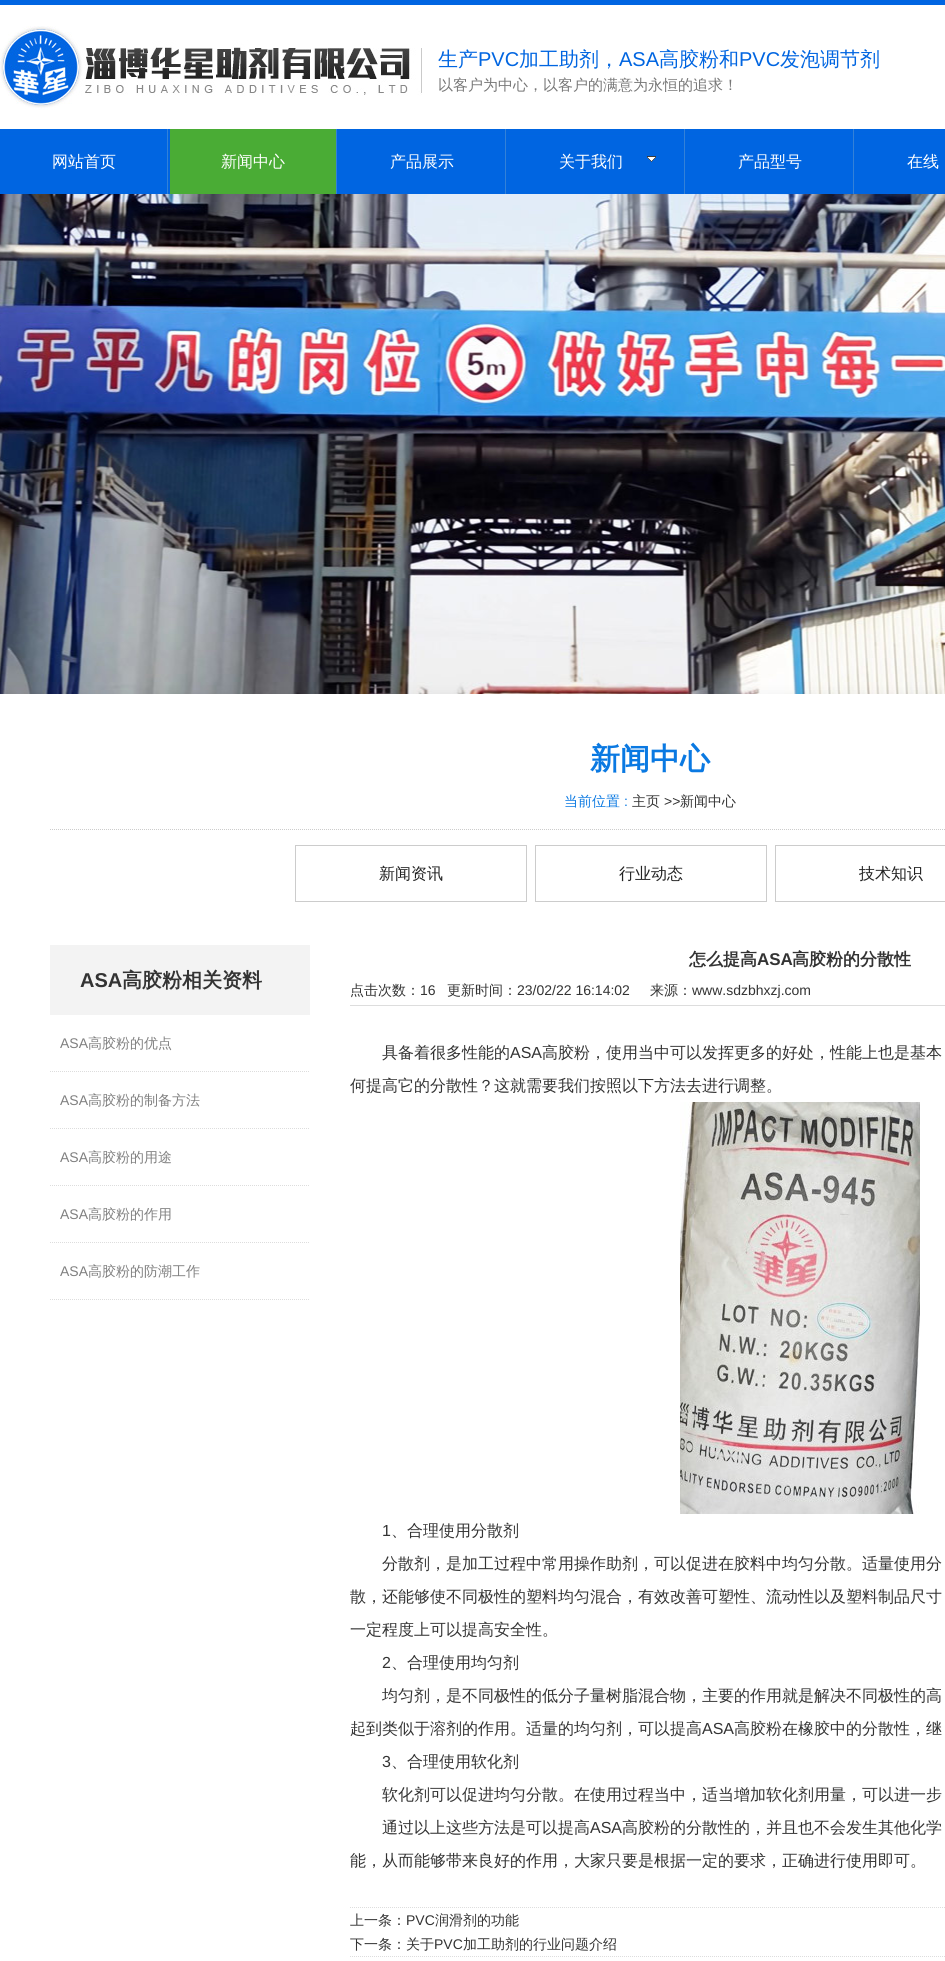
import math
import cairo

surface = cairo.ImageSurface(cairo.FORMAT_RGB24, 945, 1961)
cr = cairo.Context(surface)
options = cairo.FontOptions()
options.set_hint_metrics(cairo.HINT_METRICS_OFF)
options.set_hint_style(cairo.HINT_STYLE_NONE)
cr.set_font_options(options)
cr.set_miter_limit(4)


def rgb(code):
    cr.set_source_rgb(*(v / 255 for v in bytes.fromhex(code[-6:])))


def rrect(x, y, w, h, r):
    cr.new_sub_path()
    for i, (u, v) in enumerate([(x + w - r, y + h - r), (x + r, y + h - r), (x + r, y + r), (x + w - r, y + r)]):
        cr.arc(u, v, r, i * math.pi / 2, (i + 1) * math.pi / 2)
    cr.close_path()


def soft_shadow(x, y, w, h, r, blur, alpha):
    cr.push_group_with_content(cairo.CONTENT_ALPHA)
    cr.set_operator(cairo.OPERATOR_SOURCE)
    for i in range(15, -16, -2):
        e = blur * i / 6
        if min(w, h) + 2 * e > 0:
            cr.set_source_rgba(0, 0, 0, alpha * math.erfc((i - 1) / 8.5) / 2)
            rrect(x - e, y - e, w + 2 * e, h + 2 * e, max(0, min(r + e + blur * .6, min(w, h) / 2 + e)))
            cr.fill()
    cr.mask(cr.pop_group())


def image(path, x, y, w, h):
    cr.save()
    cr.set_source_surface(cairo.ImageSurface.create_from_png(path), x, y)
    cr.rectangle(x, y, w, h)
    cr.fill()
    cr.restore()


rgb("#ffffff")
cr.paint()
image("img/1.png", 0, 0, 945, 194)
image("img/2.png", 0, 26, 422, 84)
for x, y, w, h, color in [
    (167, 129, 1, 65, "#3381d8"),
    (336, 129, 1, 65, "#3381d8"),
    (170, 129, 166, 65, "#4aac35"),
    (505, 129, 1, 65, "#3381d8"),
    (684, 129, 1, 65, "#3381d8"),
]:
    rgb(color)
    cr.rectangle(x, y, w, h)
    cr.fill()
image("img/3.png", 647, 156, 9, 6)
cr.rectangle(853, 129, 1, 65)
cr.fill()
image("img/4.png", 0, 194, 945, 500)
rgb("#000000")
soft_shadow(0, 699, 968, 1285, 0, 7.5, 0.1)
rgb("#ffffff")
cr.rectangle(0, 694, 945, 1267)
cr.fill()
cr.new_path()
cr.move_to(50, 829.5)
cr.line_to(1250, 829.5)
rgb("#cccccc")
cr.set_line_width(1)
cr.set_dash([1, 1])
cr.stroke()
cr.rectangle(295.5, 845.5, 231, 56)
cr.set_dash([])
cr.stroke()
cr.rectangle(535.5, 845.5, 231, 56)
cr.stroke()
cr.rectangle(775.5, 845.5, 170, 56)
cr.stroke()
rgb("#f3f3f3")
cr.rectangle(50, 945, 260, 70)
cr.fill()
cr.new_path()
cr.move_to(50, 1071.5)
cr.line_to(310, 1071.5)
rgb("#dddddd")
cr.set_dash([1, 1])
cr.stroke()
cr.new_path()
cr.move_to(50, 1128.5)
cr.line_to(310, 1128.5)
cr.stroke()
cr.new_path()
cr.move_to(50, 1185.5)
cr.line_to(310, 1185.5)
cr.stroke()
cr.new_path()
cr.move_to(50, 1242.5)
cr.line_to(310, 1242.5)
cr.stroke()
cr.new_path()
cr.move_to(50, 1299.5)
cr.line_to(310, 1299.5)
cr.stroke()
cr.rectangle(350, 1005, 595, 1)
cr.fill()
image("img/5.png", 680, 1102, 240, 412)
cr.new_path()
cr.move_to(350, 1907.5)
cr.line_to(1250, 1907.5)
cr.stroke()
cr.new_path()
cr.move_to(350, 1956.5)
cr.line_to(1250, 1956.5)
cr.stroke()
cr.select_font_face("WenQuanYi Zen Hei Medium")
cr.set_font_size(20)
rgb("#0065e1")
cr.move_to(438, 66)
cr.show_text("生产")
cr.select_font_face("Liberation Sans")
cr.move_to(478, 66)
cr.show_text("PVC")
cr.select_font_face("WenQuanYi Zen Hei Medium")
cr.move_to(519, 66)
cr.show_text("加工助剂，")
cr.select_font_face("Liberation Sans")
cr.move_to(619, 66)
cr.show_text("ASA")
cr.select_font_face("WenQuanYi Zen Hei Medium")
cr.move_to(659, 66)
cr.show_text("高胶粉和")
cr.select_font_face("Liberation Sans")
cr.move_to(739, 66)
cr.show_text("PVC")
cr.select_font_face("WenQuanYi Zen Hei Medium")
cr.move_to(780, 66)
cr.show_text("发泡调节剂")
cr.set_font_size(15)
rgb("#777777")
cr.move_to(438, 90)
cr.show_text("以客户为中心，以客户的满意为永恒的追求！")
cr.set_font_size(16)
rgb("#ffffff")
for x, y, s in [
    (52, 167, "网站首页"),
    (221, 167, "新闻中心"),
    (390, 167, "产品展示"),
    (559, 167, "关于我们"),
    (738, 167, "产品型号"),
    (907, 167, "在线"),
]:
    cr.move_to(x, y)
    cr.show_text(s)
cr.select_font_face("WenQuanYi Zen Hei", cairo.FONT_SLANT_NORMAL, cairo.FONT_WEIGHT_BOLD)
cr.set_font_size(30)
rgb("#0a79e2")
cr.move_to(590, 769)
cr.show_text("新闻中心")
cr.select_font_face("WenQuanYi Zen Hei Medium")
cr.set_font_size(14)
cr.move_to(564, 806)
cr.show_text("当前位置")
cr.select_font_face("Liberation Sans")
cr.move_to(624, 806)
cr.show_text(":")
cr.select_font_face("WenQuanYi Zen Hei Medium")
rgb("#333333")
cr.move_to(632, 806)
cr.show_text("主页")
cr.select_font_face("Liberation Sans")
cr.move_to(664, 806)
cr.show_text(">>")
cr.select_font_face("WenQuanYi Zen Hei Medium")
cr.move_to(680, 806)
cr.show_text("新闻中心")
cr.set_font_size(16)
rgb("#222222")
for x, y, s in [
    (379, 879, "新闻资讯"),
    (619, 879, "行业动态"),
    (859, 879, "技术知识"),
]:
    cr.move_to(x, y)
    cr.show_text(s)
cr.select_font_face("Liberation Sans", cairo.FONT_SLANT_NORMAL, cairo.FONT_WEIGHT_BOLD)
cr.set_font_size(20)
rgb("#333333")
cr.move_to(80, 987)
cr.show_text("ASA")
cr.select_font_face("WenQuanYi Zen Hei", cairo.FONT_SLANT_NORMAL, cairo.FONT_WEIGHT_BOLD)
cr.move_to(122, 987)
cr.show_text("高胶粉相关资料")
cr.select_font_face("Liberation Sans")
cr.set_font_size(14)
rgb("#808080")
cr.move_to(60, 1048)
cr.show_text("ASA")
cr.select_font_face("WenQuanYi Zen Hei Medium")
cr.move_to(88, 1048)
cr.show_text("高胶粉的优点")
cr.select_font_face("Liberation Sans")
cr.move_to(60, 1105)
cr.show_text("ASA")
cr.select_font_face("WenQuanYi Zen Hei Medium")
cr.move_to(88, 1105)
cr.show_text("高胶粉的制备方法")
cr.select_font_face("Liberation Sans")
cr.move_to(60, 1162)
cr.show_text("ASA")
cr.select_font_face("WenQuanYi Zen Hei Medium")
cr.move_to(88, 1162)
cr.show_text("高胶粉的用途")
cr.select_font_face("Liberation Sans")
cr.move_to(60, 1219)
cr.show_text("ASA")
cr.select_font_face("WenQuanYi Zen Hei Medium")
cr.move_to(88, 1219)
cr.show_text("高胶粉的作用")
cr.select_font_face("Liberation Sans")
cr.move_to(60, 1276)
cr.show_text("ASA")
cr.select_font_face("WenQuanYi Zen Hei Medium")
cr.move_to(88, 1276)
cr.show_text("高胶粉的防潮工作")
cr.select_font_face("WenQuanYi Zen Hei", cairo.FONT_SLANT_NORMAL, cairo.FONT_WEIGHT_BOLD)
cr.set_font_size(17)
rgb("#333333")
cr.move_to(689, 965)
cr.show_text("怎么提高")
cr.select_font_face("Liberation Sans", cairo.FONT_SLANT_NORMAL, cairo.FONT_WEIGHT_BOLD)
cr.move_to(757, 965)
cr.show_text("ASA")
cr.select_font_face("WenQuanYi Zen Hei", cairo.FONT_SLANT_NORMAL, cairo.FONT_WEIGHT_BOLD)
cr.move_to(792, 965)
cr.show_text("高胶粉的分散性")
cr.select_font_face("WenQuanYi Zen Hei Medium")
cr.set_font_size(14)
cr.move_to(350, 995)
cr.show_text("点击次数：")
cr.select_font_face("Liberation Sans")
cr.move_to(420, 995)
cr.show_text("16")
cr.select_font_face("WenQuanYi Zen Hei Medium")
cr.move_to(447, 995)
cr.show_text("更新时间：")
cr.select_font_face("Liberation Sans")
cr.move_to(517, 995)
cr.show_text("23/02/22 16:14:02")
cr.select_font_face("WenQuanYi Zen Hei Medium")
cr.move_to(650, 995)
cr.show_text("来源：")
cr.select_font_face("Liberation Sans")
cr.move_to(692, 995)
cr.show_text("www.sdzbhxzj.com")
cr.select_font_face("WenQuanYi Zen Hei Medium")
cr.set_font_size(16)
cr.move_to(382, 1058)
cr.show_text("具备着很多性能的")
cr.select_font_face("Liberation Sans")
cr.move_to(510, 1058)
cr.show_text("ASA")
cr.select_font_face("WenQuanYi Zen Hei Medium")
cr.move_to(542, 1058)
cr.show_text("高胶粉，使用当中可以发挥更多的好处，性能上也是基本")
cr.move_to(350, 1091)
cr.show_text("何提高它的分散性？这就需要我们按照以下方法去进行调整。")
cr.select_font_face("Liberation Sans")
cr.move_to(382, 1536)
cr.show_text("1")
cr.select_font_face("WenQuanYi Zen Hei Medium")
for x, y, s in [
    (391, 1536, "、合理使用分散剂"),
    (382, 1569, "分散剂，是加工过程中常用操作助剂，可以促进在胶料中均匀分散。适量使用分"),
    (350, 1602, "散，还能够使不同极性的塑料均匀混合，有效改善可塑性、流动性以及塑料制品尺寸"),
    (350, 1635, "一定程度上可以提高安全性。"),
]:
    cr.move_to(x, y)
    cr.show_text(s)
cr.select_font_face("Liberation Sans")
cr.move_to(382, 1668)
cr.show_text("2")
cr.select_font_face("WenQuanYi Zen Hei Medium")
for x, y, s in [
    (391, 1668, "、合理使用均匀剂"),
    (382, 1701, "均匀剂，是不同极性的低分子量树脂混合物，主要的作用就是解决不同极性的高"),
    (350, 1734, "起到类似于溶剂的作用。适量的均匀剂，可以提高"),
]:
    cr.move_to(x, y)
    cr.show_text(s)
cr.select_font_face("Liberation Sans")
cr.move_to(702, 1734)
cr.show_text("ASA")
cr.select_font_face("WenQuanYi Zen Hei Medium")
cr.move_to(734, 1734)
cr.show_text("高胶粉在橡胶中的分散性，继")
cr.select_font_face("Liberation Sans")
cr.move_to(382, 1767)
cr.show_text("3")
cr.select_font_face("WenQuanYi Zen Hei Medium")
for x, y, s in [
    (391, 1767, "、合理使用软化剂"),
    (382, 1800, "软化剂可以促进均匀分散。在使用过程当中，适当增加软化剂用量，可以进一步"),
    (382, 1833, "通过以上这些方法是可以提高"),
]:
    cr.move_to(x, y)
    cr.show_text(s)
cr.select_font_face("Liberation Sans")
cr.move_to(590, 1833)
cr.show_text("ASA")
cr.select_font_face("WenQuanYi Zen Hei Medium")
cr.move_to(622, 1833)
cr.show_text("高胶粉的分散性的，并且也不会发生其他化学")
cr.move_to(350, 1866)
cr.show_text("能，从而能够带来良好的作用，大家只要是根据一定的要求，正确进行使用即可。")
cr.set_font_size(14)
cr.move_to(350, 1925)
cr.show_text("上一条：")
cr.select_font_face("Liberation Sans")
cr.move_to(406, 1925)
cr.show_text("PVC")
cr.select_font_face("WenQuanYi Zen Hei Medium")
cr.move_to(435, 1925)
cr.show_text("润滑剂的功能")
cr.move_to(350, 1949)
cr.show_text("下一条：关于")
cr.select_font_face("Liberation Sans")
cr.move_to(434, 1949)
cr.show_text("PVC")
cr.select_font_face("WenQuanYi Zen Hei Medium")
cr.move_to(463, 1949)
cr.show_text("加工助剂的行业问题介绍")
surface.write_to_png("page.png")
